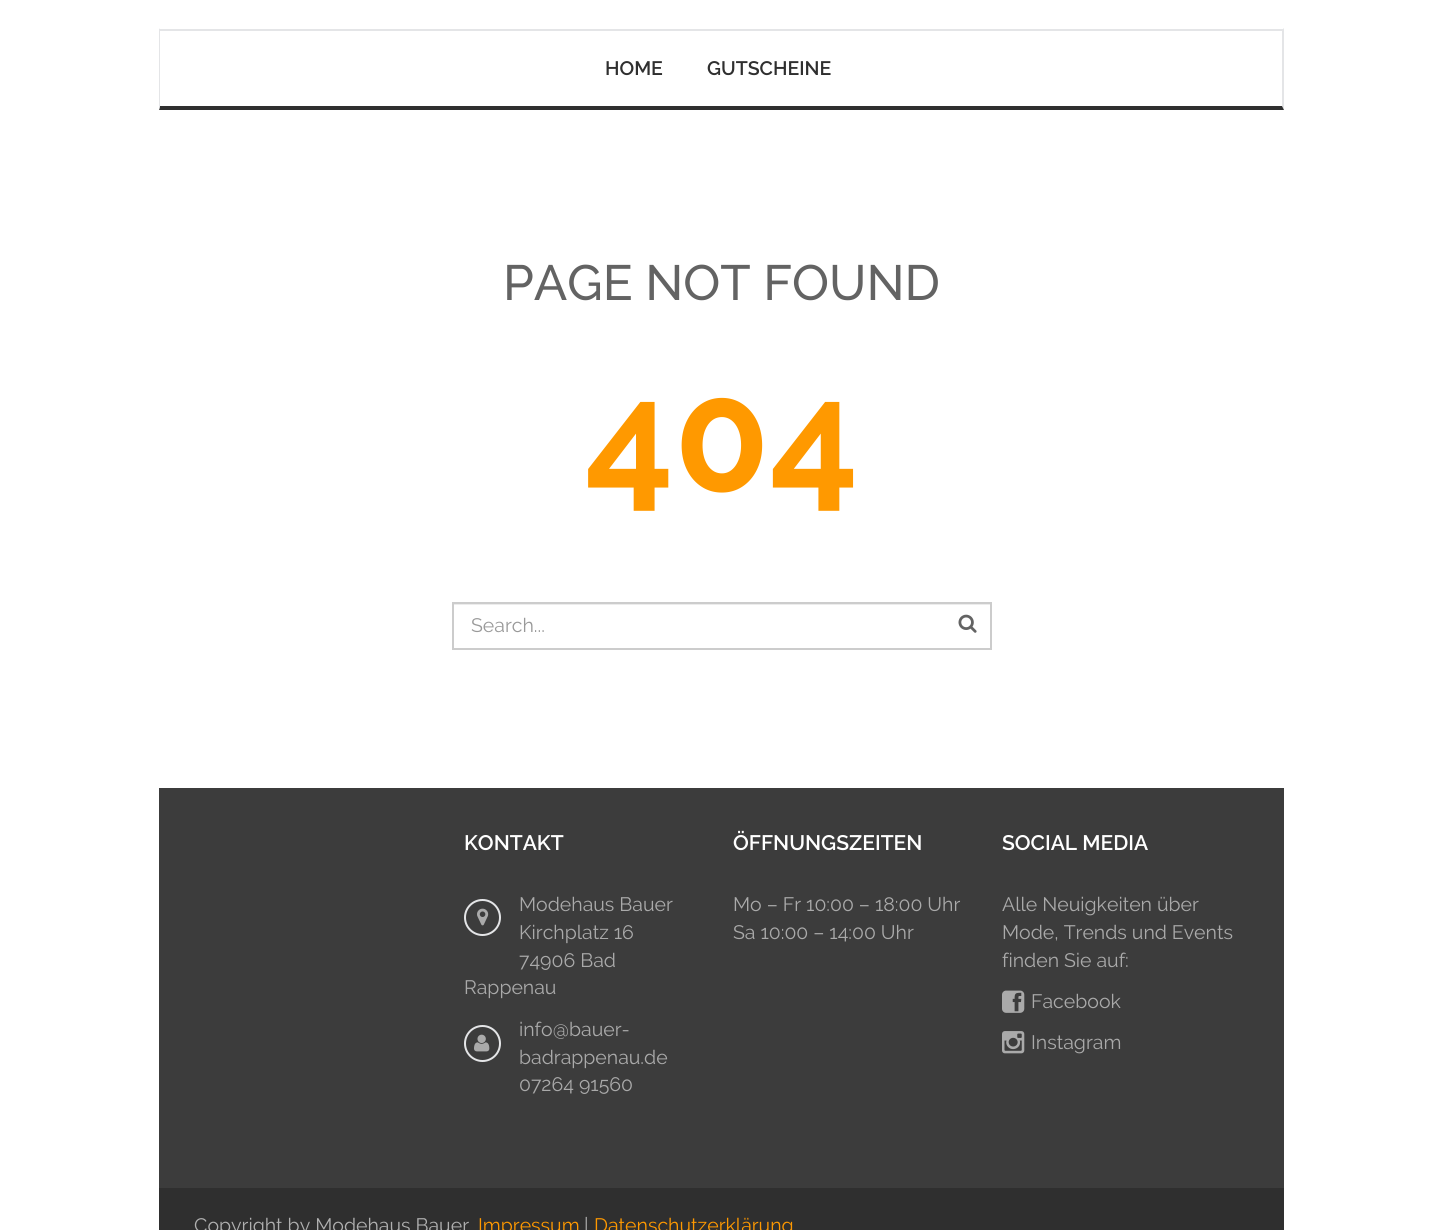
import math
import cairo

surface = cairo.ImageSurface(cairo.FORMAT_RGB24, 1443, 1230)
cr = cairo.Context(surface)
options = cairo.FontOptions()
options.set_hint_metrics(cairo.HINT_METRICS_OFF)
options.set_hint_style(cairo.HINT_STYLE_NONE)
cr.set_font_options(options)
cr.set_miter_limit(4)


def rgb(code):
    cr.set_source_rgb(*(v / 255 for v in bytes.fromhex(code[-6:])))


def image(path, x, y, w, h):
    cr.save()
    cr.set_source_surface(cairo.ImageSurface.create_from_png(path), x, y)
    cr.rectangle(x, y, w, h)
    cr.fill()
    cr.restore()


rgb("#ffffff")
cr.paint()
rgb("#e4e5e7")
cr.rectangle(159, 29, 1125, 2)
cr.fill()
cr.new_path()
cr.move_to(1284, 28)
cr.line_to(1284, 110)
cr.line_to(1282, 106)
cr.line_to(1282, 30)
cr.close_path()
cr.fill()
rgb("#2f2f2f")
cr.new_path()
cr.move_to(1284, 110)
cr.line_to(159, 110)
cr.line_to(160, 106)
cr.line_to(1282, 106)
cr.close_path()
cr.fill()
rgb("#e4e5e7")
cr.new_path()
cr.move_to(159, 110)
cr.line_to(159, 28)
cr.line_to(160, 30)
cr.line_to(160, 106)
cr.close_path()
cr.fill()
rgb("#ececec")
cr.rectangle(453, 604, 537, 1)
cr.fill()
cr.rectangle(453, 603, 538, 46)
rgb("#cccccc")
cr.stroke()
image("img/1.png", 958, 614, 19, 19)
rgb("#3c3c3c")
cr.rectangle(159, 788, 1125, 400)
cr.fill()
cr.arc(482.5, 917.5, 17.5, 0, 2 * math.pi)
rgb("#e4e5e7")
cr.stroke()
image("img/2.png", 477, 908, 12, 18)
cr.arc(482.5, 1043.5, 17.5, 0, 2 * math.pi)
cr.stroke()
image("img/3.png", 474, 1034, 16, 18)
image("img/4.png", 1002, 990, 23, 23)
image("img/5.png", 1002, 1031, 23, 23)
rgb("#2f2f2f")
cr.rectangle(159, 1188, 1125, 42)
cr.fill()
cr.select_font_face("Raleway SemiBold")
cr.set_font_size(19.5)
cr.move_to(605, 75)
cr.show_text("HOME")
cr.move_to(707, 75)
cr.show_text("GUTSCHEINE")
cr.select_font_face("Raleway Medium")
cr.set_font_size(49.5)
rgb("#636363")
cr.move_to(503, 300)
cr.show_text("PAGE NOT FOUND")
cr.select_font_face("Raleway", cairo.FONT_SLANT_NORMAL, cairo.FONT_WEIGHT_BOLD)
cr.set_font_size(156)
rgb("#ff9900")
cr.move_to(585, 491)
cr.show_text("404")
cr.select_font_face("Raleway")
cr.set_font_size(19.5)
rgb("#999999")
cr.move_to(471, 632)
cr.show_text("Search...")
cr.select_font_face("Raleway SemiBold")
cr.set_font_size(21)
rgb("#ffffff")
cr.move_to(464, 850)
cr.show_text("KONTAKT")
cr.select_font_face("Raleway")
cr.set_font_size(19.5)
rgb("#aaaaaa")
for x, y, s in [
    (519, 911, "Modehaus Bauer"),
    (519, 939, "Kirchplatz 16"),
    (519, 967, "74906 Bad"),
    (464, 994, "Rappenau"),
    (519, 1036, "info@bauer-"),
    (519, 1064, "badrappenau.de"),
    (519, 1091, "07264 91560"),
]:
    cr.move_to(x, y)
    cr.show_text(s)
cr.select_font_face("Raleway SemiBold")
cr.set_font_size(21)
rgb("#ffffff")
cr.move_to(733, 850)
cr.show_text("ÖFFNUNGSZEITEN")
cr.select_font_face("Raleway")
cr.set_font_size(19.5)
rgb("#aaaaaa")
cr.move_to(733, 911)
cr.show_text("Mo – Fr 10:00 – 18:00 Uhr")
cr.move_to(733, 939)
cr.show_text("Sa 10:00 – 14:00 Uhr")
cr.select_font_face("Raleway SemiBold")
cr.set_font_size(21)
rgb("#ffffff")
cr.move_to(1002, 850)
cr.show_text("SOCIAL MEDIA")
cr.select_font_face("Raleway")
cr.set_font_size(19.5)
rgb("#aaaaaa")
for x, y, s in [
    (1002, 911, "Alle Neuigkeiten über"),
    (1002, 939, "Mode, Trends und Events"),
    (1002, 967, "finden Sie auf:"),
    (1031, 1008, "Facebook"),
    (1031, 1049, "Instagram"),
]:
    cr.move_to(x, y)
    cr.show_text(s)
rgb("#b0b0b0")
cr.move_to(194, 1232)
cr.show_text("Copyright by Modehaus Bauer")
rgb("#ff9900")
cr.move_to(478, 1232)
cr.show_text("Impressum")
rgb("#b0b0b0")
cr.move_to(584, 1232)
cr.show_text("|")
rgb("#ff9900")
cr.move_to(594, 1232)
cr.show_text("Datenschutzerklärung")
surface.write_to_png("page.png")
